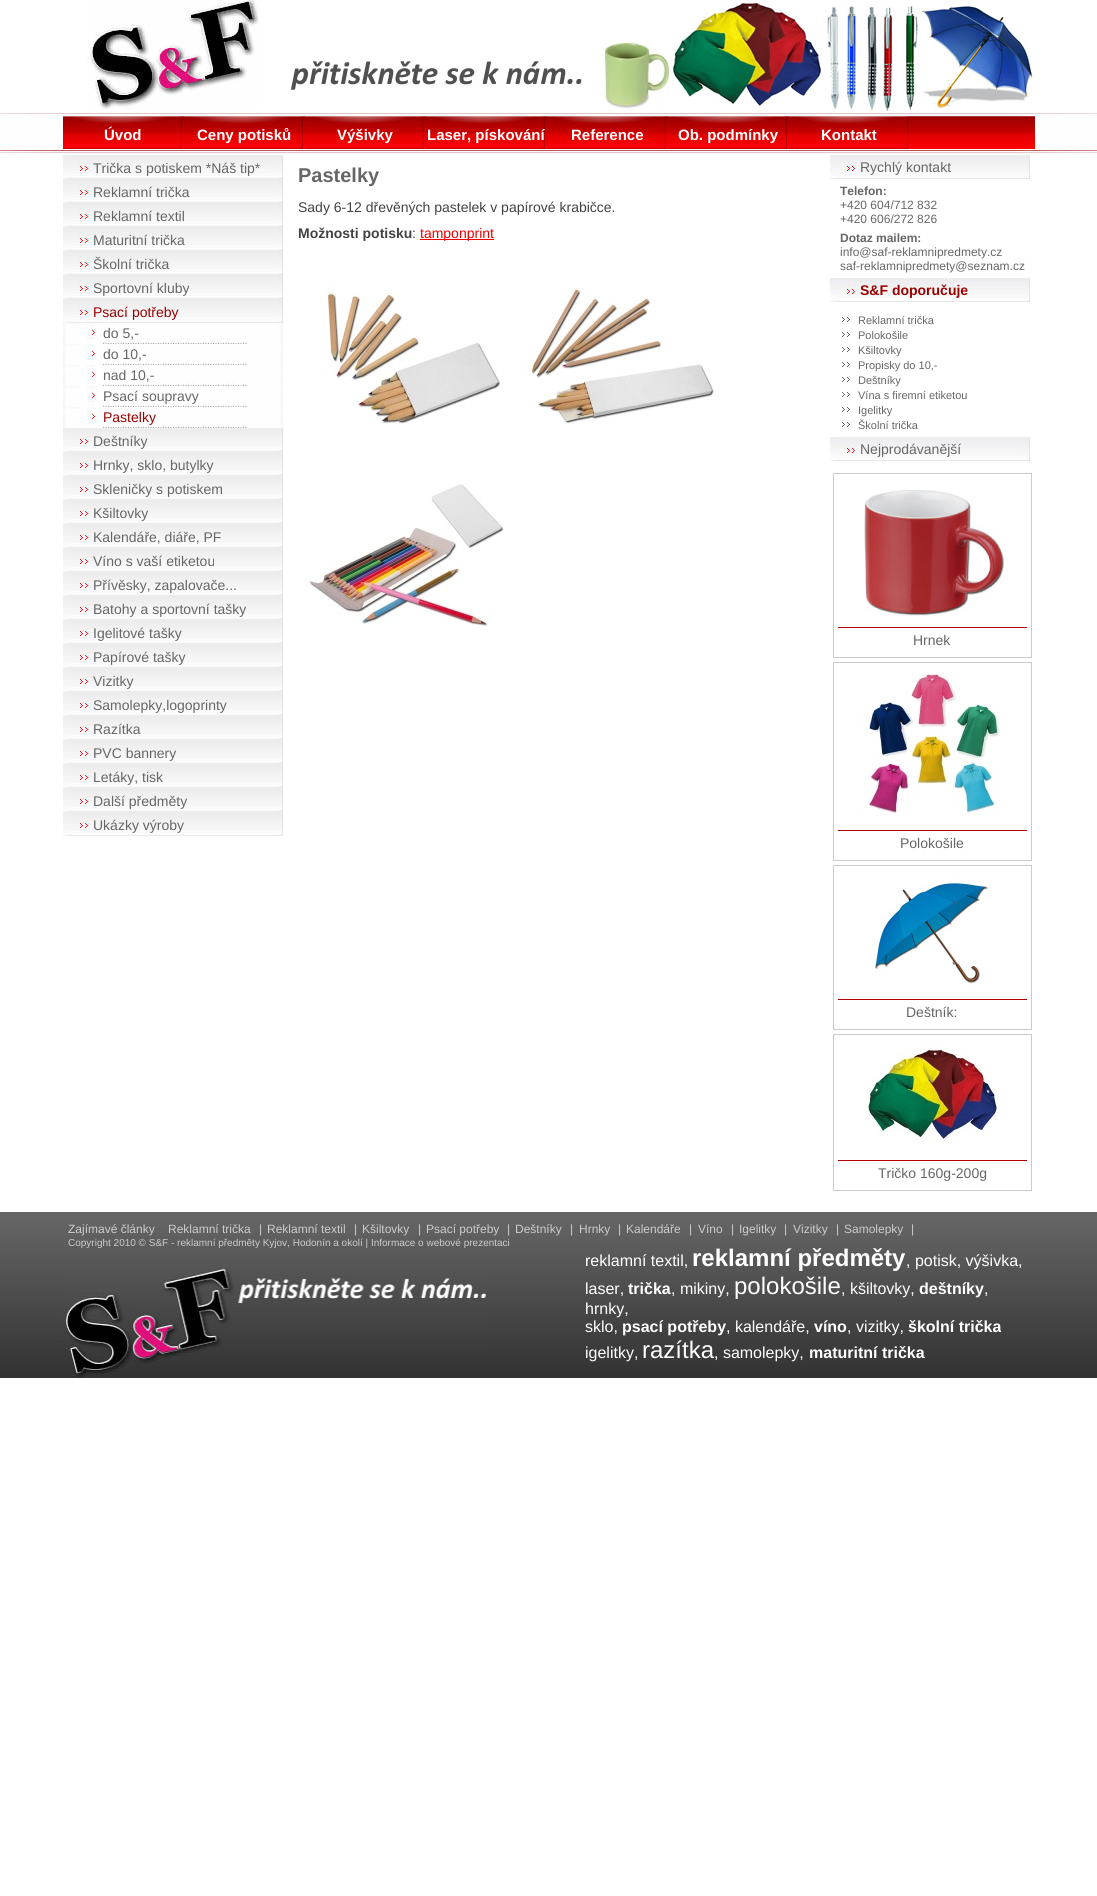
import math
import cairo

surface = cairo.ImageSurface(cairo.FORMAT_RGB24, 1097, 1896)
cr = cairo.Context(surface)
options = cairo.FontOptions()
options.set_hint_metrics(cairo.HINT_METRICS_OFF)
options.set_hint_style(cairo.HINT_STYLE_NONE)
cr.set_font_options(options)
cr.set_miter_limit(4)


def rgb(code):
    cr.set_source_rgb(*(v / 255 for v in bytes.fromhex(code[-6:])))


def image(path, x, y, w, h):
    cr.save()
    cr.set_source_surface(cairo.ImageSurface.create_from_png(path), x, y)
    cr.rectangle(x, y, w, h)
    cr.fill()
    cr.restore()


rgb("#ffffff")
cr.paint()
image("img/1.png", 0, 1212, 1097, 166)
image("img/2.png", 0, 112, 1097, 43)
image("img/3.png", 290, 0, 745, 111)
image("img/4.png", 87, 0, 172, 110)
image("img/5.png", 182, 116, 853, 33)
image("img/6.png", 63, 116, 119, 33)
image("img/6.png", 184, 116, 119, 33)
image("img/6.png", 305, 116, 119, 33)
image("img/6.png", 426, 116, 119, 33)
image("img/6.png", 547, 116, 119, 33)
image("img/6.png", 668, 116, 119, 33)
image("img/6.png", 789, 116, 119, 33)
image("img/7.png", 63, 155, 220, 24)
image("img/7.png", 63, 179, 220, 24)
image("img/7.png", 63, 203, 220, 24)
image("img/7.png", 63, 227, 220, 24)
image("img/7.png", 63, 251, 220, 24)
image("img/7.png", 63, 275, 220, 24)
image("img/7.png", 63, 299, 220, 24)
image("img/8.png", 63, 323, 220, 21)
image("img/8.png", 63, 344, 220, 21)
image("img/8.png", 63, 365, 220, 21)
image("img/8.png", 63, 386, 220, 21)
image("img/8.png", 63, 407, 220, 21)
image("img/7.png", 63, 428, 220, 24)
image("img/7.png", 63, 452, 220, 24)
image("img/7.png", 63, 476, 220, 24)
image("img/7.png", 63, 500, 220, 24)
image("img/7.png", 63, 524, 220, 24)
image("img/7.png", 63, 548, 220, 24)
image("img/7.png", 63, 572, 220, 24)
image("img/7.png", 63, 596, 220, 24)
image("img/7.png", 63, 620, 220, 24)
image("img/7.png", 63, 644, 220, 24)
image("img/7.png", 63, 668, 220, 24)
image("img/7.png", 63, 692, 220, 24)
image("img/7.png", 63, 716, 220, 24)
image("img/7.png", 63, 740, 220, 24)
image("img/7.png", 63, 764, 220, 24)
image("img/7.png", 63, 788, 220, 24)
image("img/7.png", 63, 812, 220, 24)
rgb("#f20000")
cr.rectangle(420, 239, 74, 1)
cr.fill()
image("img/9.png", 322, 281, 179, 144)
image("img/10.png", 524, 281, 190, 143)
image("img/11.png", 306, 484, 199, 145)
image("img/12.png", 830, 155, 200, 24)
image("img/12.png", 830, 278, 200, 24)
image("img/13.png", 842, 317, 8, 5)
image("img/13.png", 842, 332, 8, 5)
image("img/13.png", 842, 347, 8, 5)
image("img/13.png", 842, 362, 8, 5)
image("img/13.png", 842, 377, 8, 5)
image("img/13.png", 842, 392, 8, 5)
image("img/13.png", 842, 407, 8, 5)
image("img/13.png", 842, 422, 8, 5)
image("img/12.png", 830, 437, 200, 24)
cr.rectangle(833.5, 473.5, 198, 184)
rgb("#cccccc")
cr.set_line_width(1)
cr.stroke()
image("img/14.png", 863, 490, 144, 126)
rgb("#b00000")
cr.rectangle(838, 627, 189, 1)
cr.fill()
cr.rectangle(833.5, 662.5, 198, 198)
rgb("#cccccc")
cr.stroke()
image("img/15.png", 857, 673, 144, 144)
rgb("#b00000")
cr.rectangle(838, 830, 189, 1)
cr.fill()
cr.rectangle(833.5, 865.5, 198, 164)
rgb("#cccccc")
cr.stroke()
image("img/16.png", 873, 877, 120, 111)
rgb("#b00000")
cr.rectangle(838, 999, 189, 1)
cr.fill()
cr.rectangle(833.5, 1034.5, 198, 156)
rgb("#cccccc")
cr.stroke()
image("img/17.png", 866, 1045, 134, 96)
rgb("#b00000")
cr.rectangle(838, 1160, 189, 1)
cr.fill()
image("img/18.png", 63, 1268, 425, 110)
cr.select_font_face("Liberation Sans", cairo.FONT_SLANT_NORMAL, cairo.FONT_WEIGHT_BOLD)
cr.set_font_size(15)
rgb("#ffffff")
for x, y, s in [
    (104, 140, "Úvod"),
    (197, 140, "Ceny potisků"),
    (337, 140, "Výšivky"),
    (427, 140, "Laser, pískování"),
    (571, 140, "Reference"),
    (678, 140, "Ob. podmínky"),
    (821, 140, "Kontakt"),
]:
    cr.move_to(x, y)
    cr.show_text(s)
cr.select_font_face("Liberation Sans")
cr.set_font_size(14)
rgb("#666666")
for x, y, s in [
    (93, 173, "Trička s potiskem *Náš tip*"),
    (93, 197, "Reklamní trička"),
    (93, 221, "Reklamní textil"),
    (93, 245, "Maturitní trička"),
    (93, 269, "Školní trička"),
    (93, 293, "Sportovní kluby"),
]:
    cr.move_to(x, y)
    cr.show_text(s)
rgb("#990000")
cr.move_to(93, 317)
cr.show_text("Psací potřeby")
rgb("#666666")
for x, y, s in [
    (103, 338, "do 5,-"),
    (103, 359, "do 10,-"),
    (103, 380, "nad 10,-"),
    (103, 401, "Psací soupravy"),
]:
    cr.move_to(x, y)
    cr.show_text(s)
rgb("#990000")
cr.move_to(103, 422)
cr.show_text("Pastelky")
rgb("#666666")
for x, y, s in [
    (93, 446, "Deštníky"),
    (93, 470, "Hrnky, sklo, butylky"),
    (93, 494, "Skleničky s potiskem"),
    (93, 518, "Kšiltovky"),
    (93, 542, "Kalendáře, diáře, PF"),
    (93, 566, "Víno s vaší etiketou"),
    (93, 590, "Přívěsky, zapalovače..."),
    (93, 614, "Batohy a sportovní tašky"),
    (93, 638, "Igelitové tašky"),
    (93, 662, "Papírové tašky"),
    (93, 686, "Vizitky"),
    (93, 710, "Samolepky,logoprinty"),
    (93, 734, "Razítka"),
    (93, 758, "PVC bannery"),
    (93, 782, "Letáky, tisk"),
    (93, 806, "Další předměty"),
    (93, 830, "Ukázky výroby"),
]:
    cr.move_to(x, y)
    cr.show_text(s)
cr.select_font_face("Liberation Sans", cairo.FONT_SLANT_NORMAL, cairo.FONT_WEIGHT_BOLD)
cr.set_font_size(20)
cr.move_to(298, 182)
cr.show_text("Pastelky")
cr.select_font_face("Liberation Sans")
cr.set_font_size(14)
rgb("#424242")
cr.move_to(298, 212)
cr.show_text("Sady 6-12 dřevěných pastelek v papírové krabičce.")
cr.select_font_face("Liberation Sans", cairo.FONT_SLANT_NORMAL, cairo.FONT_WEIGHT_BOLD)
cr.move_to(298, 238)
cr.show_text("Možnosti potisku")
cr.select_font_face("Liberation Sans")
cr.move_to(412, 238)
cr.show_text(":")
rgb("#f20000")
cr.move_to(420, 238)
cr.show_text("tamponprint")
rgb("#666666")
cr.move_to(860, 172)
cr.show_text("Rychlý kontakt")
cr.select_font_face("Liberation Sans", cairo.FONT_SLANT_NORMAL, cairo.FONT_WEIGHT_BOLD)
cr.set_font_size(12)
cr.move_to(840, 195)
cr.show_text("Telefon:")
cr.select_font_face("Liberation Sans")
cr.move_to(840, 209)
cr.show_text("+420 604/712 832")
cr.move_to(840, 223)
cr.show_text("+420 606/272 826")
cr.select_font_face("Liberation Sans", cairo.FONT_SLANT_NORMAL, cairo.FONT_WEIGHT_BOLD)
cr.move_to(840, 242)
cr.show_text("Dotaz mailem:")
cr.select_font_face("Liberation Sans")
cr.move_to(840, 256)
cr.show_text("info@saf-reklamnipredmety.cz")
cr.move_to(840, 270)
cr.show_text("saf-reklamnipredmety@seznam.cz")
cr.select_font_face("Liberation Sans", cairo.FONT_SLANT_NORMAL, cairo.FONT_WEIGHT_BOLD)
cr.set_font_size(14)
rgb("#990000")
cr.move_to(860, 295)
cr.show_text("S&F doporučuje")
cr.select_font_face("Liberation Sans")
cr.set_font_size(11)
rgb("#666666")
for x, y, s in [
    (858, 324, "Reklamní trička"),
    (858, 339, "Polokošile"),
    (858, 354, "Kšiltovky"),
    (858, 369, "Propisky do 10,-"),
    (858, 384, "Deštníky"),
    (858, 399, "Vína s firemní etiketou"),
    (858, 414, "Igelitky"),
    (858, 429, "Školní trička"),
]:
    cr.move_to(x, y)
    cr.show_text(s)
cr.set_font_size(14)
for x, y, s in [
    (860, 454, "Nejprodávanější"),
    (913, 645, "Hrnek"),
    (900, 848, "Polokošile"),
    (906, 1017, "Deštník:"),
    (878, 1178, "Tričko 160g-200g"),
]:
    cr.move_to(x, y)
    cr.show_text(s)
cr.set_font_size(12)
rgb("#cccccc")
for x, y, s in [
    (68, 1233, "Zajímavé články"),
    (168, 1233, "Reklamní trička"),
    (259, 1233, "|"),
    (267, 1233, "Reklamní textil"),
    (354, 1233, "|"),
    (362, 1233, "Kšiltovky"),
    (418, 1233, "|"),
    (426, 1233, "Psací potřeby"),
    (507, 1233, "|"),
    (515, 1233, "Deštníky"),
    (570, 1233, "|"),
    (579, 1233, "Hrnky"),
    (618, 1233, "|"),
    (626, 1233, "Kalendáře"),
    (689, 1233, "|"),
    (698, 1233, "Víno"),
    (731, 1233, "|"),
    (739, 1233, "Igelitky"),
    (784, 1233, "|"),
    (793, 1233, "Vizitky"),
    (836, 1233, "|"),
    (844, 1233, "Samolepky"),
    (911, 1233, "|"),
]:
    cr.move_to(x, y)
    cr.show_text(s)
cr.set_font_size(10)
cr.move_to(68, 1246)
cr.show_text("Copyright 2010 © S&F - reklamní předměty Kyjov, Hodonín a okolí | Informace o webové prezentaci")
cr.set_font_size(16)
rgb("#ffffff")
cr.move_to(585, 1266)
cr.show_text("reklamní textil,")
cr.select_font_face("Liberation Sans", cairo.FONT_SLANT_NORMAL, cairo.FONT_WEIGHT_BOLD)
cr.set_font_size(24)
cr.move_to(692, 1266)
cr.show_text("reklamní předměty")
cr.select_font_face("Liberation Sans")
cr.set_font_size(16)
cr.move_to(906, 1266)
cr.show_text(", potisk, výšivka,")
cr.move_to(585, 1294)
cr.show_text("laser,")
cr.select_font_face("Liberation Sans", cairo.FONT_SLANT_NORMAL, cairo.FONT_WEIGHT_BOLD)
cr.move_to(628, 1294)
cr.show_text("trička")
cr.select_font_face("Liberation Sans")
cr.move_to(671, 1294)
cr.show_text(", mikiny,")
cr.set_font_size(24)
cr.move_to(734, 1294)
cr.show_text("polokošile")
cr.set_font_size(16)
cr.move_to(841, 1294)
cr.show_text(", kšiltovky,")
cr.select_font_face("Liberation Sans", cairo.FONT_SLANT_NORMAL, cairo.FONT_WEIGHT_BOLD)
cr.move_to(919, 1294)
cr.show_text("deštníky")
cr.select_font_face("Liberation Sans")
for x, y, s in [
    (984, 1294, ","),
    (585, 1314, "hrnky,"),
    (585, 1332, "sklo,"),
]:
    cr.move_to(x, y)
    cr.show_text(s)
cr.select_font_face("Liberation Sans", cairo.FONT_SLANT_NORMAL, cairo.FONT_WEIGHT_BOLD)
cr.move_to(622, 1332)
cr.show_text("psací potřeby")
cr.select_font_face("Liberation Sans")
cr.move_to(726, 1332)
cr.show_text(", kalendáře,")
cr.select_font_face("Liberation Sans", cairo.FONT_SLANT_NORMAL, cairo.FONT_WEIGHT_BOLD)
cr.move_to(814, 1332)
cr.show_text("víno")
cr.select_font_face("Liberation Sans")
cr.move_to(847, 1332)
cr.show_text(", vizitky,")
cr.select_font_face("Liberation Sans", cairo.FONT_SLANT_NORMAL, cairo.FONT_WEIGHT_BOLD)
cr.move_to(908, 1332)
cr.show_text("školní trička")
cr.select_font_face("Liberation Sans")
cr.move_to(585, 1358)
cr.show_text("igelitky,")
cr.set_font_size(24)
cr.move_to(642, 1358)
cr.show_text("razítka")
cr.set_font_size(16)
cr.move_to(714, 1358)
cr.show_text(", samolepky,")
cr.select_font_face("Liberation Sans", cairo.FONT_SLANT_NORMAL, cairo.FONT_WEIGHT_BOLD)
cr.move_to(809, 1358)
cr.show_text("maturitní trička")
surface.write_to_png("page.png")
